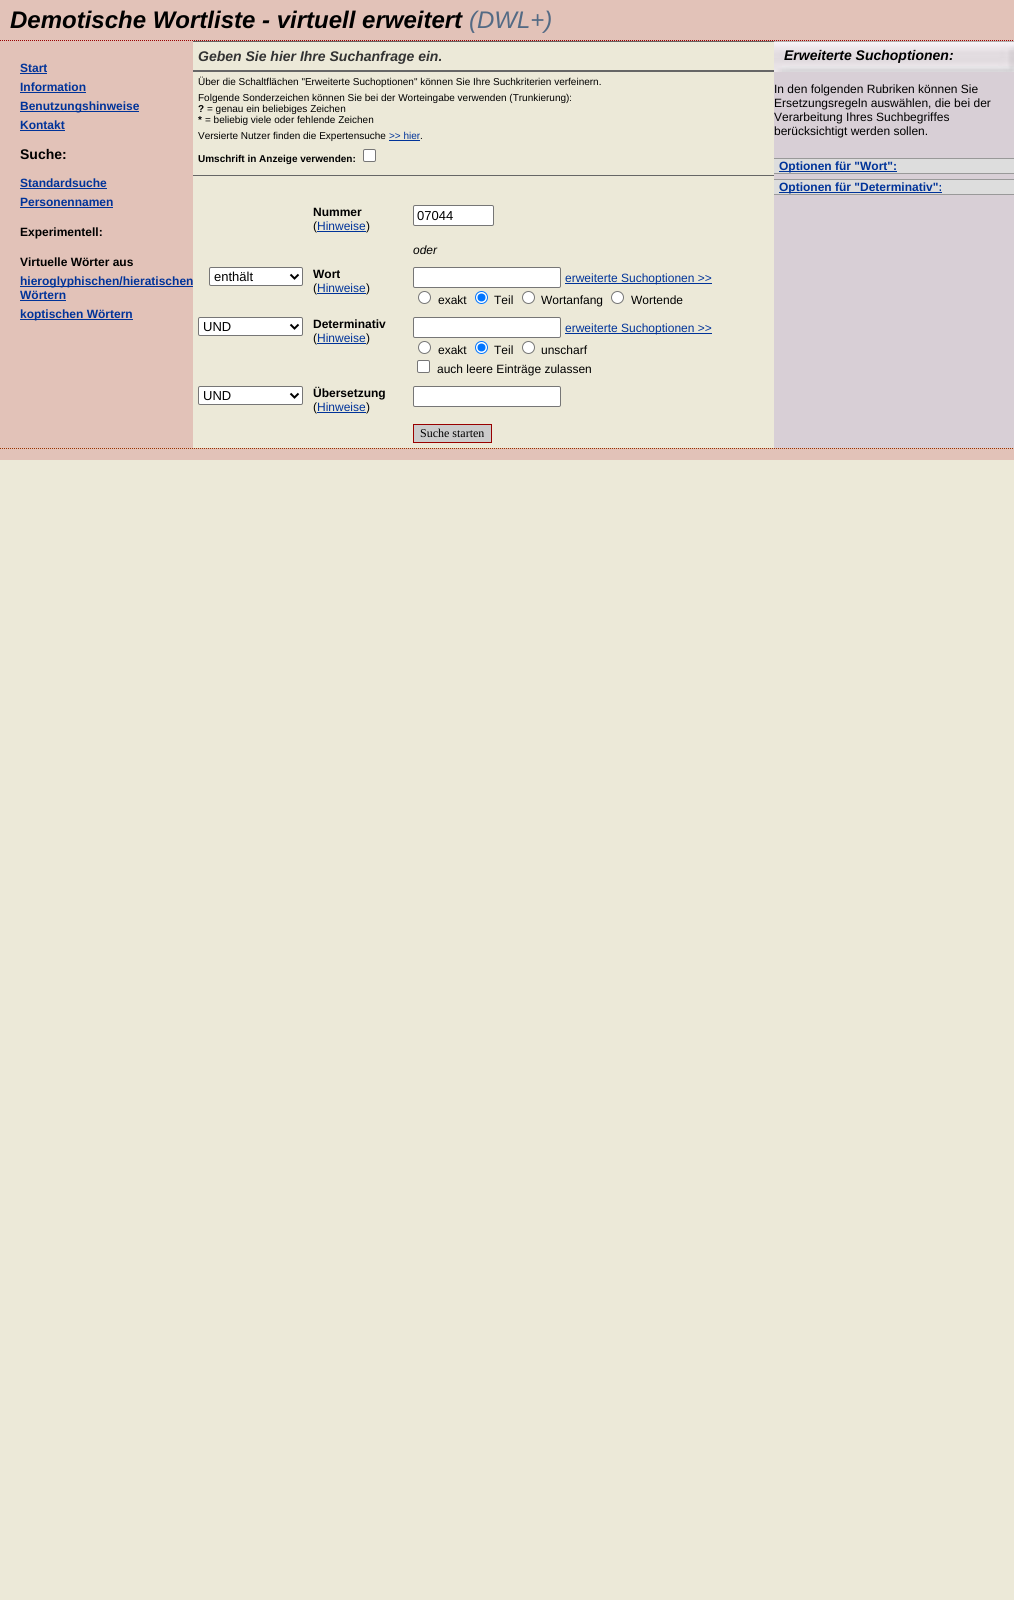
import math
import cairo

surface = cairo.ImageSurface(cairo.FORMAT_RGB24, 1014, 1600)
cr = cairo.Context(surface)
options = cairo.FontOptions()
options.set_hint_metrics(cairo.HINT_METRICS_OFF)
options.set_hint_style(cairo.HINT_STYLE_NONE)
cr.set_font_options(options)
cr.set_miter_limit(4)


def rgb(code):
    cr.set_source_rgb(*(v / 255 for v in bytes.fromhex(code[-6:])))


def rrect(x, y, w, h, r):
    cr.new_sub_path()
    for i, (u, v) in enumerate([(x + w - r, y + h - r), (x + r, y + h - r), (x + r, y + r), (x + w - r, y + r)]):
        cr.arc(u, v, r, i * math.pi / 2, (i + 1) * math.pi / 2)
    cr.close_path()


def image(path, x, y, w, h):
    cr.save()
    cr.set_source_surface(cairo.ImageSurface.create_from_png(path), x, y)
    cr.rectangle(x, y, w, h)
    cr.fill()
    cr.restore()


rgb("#ece9d8")
cr.paint()
rgb("#e2c2b8")
cr.rectangle(0, 0, 1014, 41)
cr.fill()
cr.new_path()
cr.move_to(0, 40.5)
cr.line_to(1014, 40.5)
rgb("#990000")
cr.set_line_width(1)
cr.set_dash([1, 1])
cr.stroke()
for x, y, w, h, color in [
    (0, 41, 193, 407, "#e2c2b8"),
    (20, 73, 27, 1, "#003399"),
    (20, 92, 66, 1, "#003399"),
    (20, 111, 119, 1, "#003399"),
    (20, 130, 45, 1, "#003399"),
    (20, 188, 87, 1, "#003399"),
    (20, 207, 93, 1, "#003399"),
    (20, 286, 173, 1, "#003399"),
    (20, 300, 46, 1, "#003399"),
    (20, 319, 113, 1, "#003399"),
    (193, 41, 581, 1, "#666666"),
    (193, 70, 581, 2, "#666666"),
    (193, 175, 581, 1, "#666666"),
    (389, 140, 31, 1, "#003399"),
]:
    rgb(color)
    cr.rectangle(x, y, w, h)
    cr.fill()
rgb("#ffffff")
rrect(363.5, 149.5, 12, 12, 1.5)
cr.fill_preserve()
rgb("#767676")
cr.set_dash([])
cr.stroke()
rgb("#ffffff")
rrect(413.5, 205.5, 80, 20, 1.5)
cr.fill_preserve()
rgb("#767676")
cr.stroke()
rgb("#ffffff")
rrect(209.5, 267.5, 93, 18, 1.5)
cr.fill_preserve()
rgb("#767676")
cr.stroke()
cr.new_path()
cr.move_to(290.5, 274.5)
cr.line_to(294.5, 278.5)
cr.line_to(298.5, 274.5)
rgb("#000000")
cr.set_line_width(2)
cr.stroke()
rgb("#ffffff")
rrect(413.5, 267.5, 147, 20, 1.5)
cr.fill_preserve()
rgb("#767676")
cr.set_line_width(1)
cr.stroke()
rgb("#003399")
cr.rectangle(565, 283, 147, 1)
cr.fill()
rgb("#ffffff")
cr.arc(424.5, 297.5, 6, 0, 2 * math.pi)
cr.fill_preserve()
rgb("#767676")
cr.stroke()
rgb("#ffffff")
cr.arc(481.5, 297.5, 6, 0, 2 * math.pi)
cr.fill_preserve()
rgb("#0075ff")
cr.stroke()
cr.arc(481.5, 297.5, 4, 0, 2 * math.pi)
cr.fill()
rgb("#ffffff")
cr.arc(528.5, 297.5, 6, 0, 2 * math.pi)
cr.fill_preserve()
rgb("#767676")
cr.stroke()
rgb("#ffffff")
cr.arc(617.5, 297.5, 6, 0, 2 * math.pi)
cr.fill_preserve()
rgb("#767676")
cr.stroke()
rgb("#ffffff")
rrect(198.5, 317.5, 104, 18, 1.5)
cr.fill_preserve()
rgb("#767676")
cr.stroke()
cr.new_path()
cr.move_to(290.5, 324.5)
cr.line_to(294.5, 328.5)
cr.line_to(298.5, 324.5)
rgb("#000000")
cr.set_line_width(2)
cr.stroke()
rgb("#ffffff")
rrect(413.5, 317.5, 147, 20, 1.5)
cr.fill_preserve()
rgb("#767676")
cr.set_line_width(1)
cr.stroke()
rgb("#003399")
cr.rectangle(565, 333, 147, 1)
cr.fill()
rgb("#ffffff")
cr.arc(424.5, 347.5, 6, 0, 2 * math.pi)
cr.fill_preserve()
rgb("#767676")
cr.stroke()
rgb("#ffffff")
cr.arc(481.5, 347.5, 6, 0, 2 * math.pi)
cr.fill_preserve()
rgb("#0075ff")
cr.stroke()
cr.arc(481.5, 347.5, 4, 0, 2 * math.pi)
cr.fill()
rgb("#ffffff")
cr.arc(528.5, 347.5, 6, 0, 2 * math.pi)
cr.fill_preserve()
rgb("#767676")
cr.stroke()
rgb("#ffffff")
rrect(417.5, 360.5, 12, 12, 1.5)
cr.fill_preserve()
rgb("#767676")
cr.stroke()
rgb("#ffffff")
rrect(198.5, 386.5, 104, 18, 1.5)
cr.fill_preserve()
rgb("#767676")
cr.stroke()
cr.new_path()
cr.move_to(290.5, 393.5)
cr.line_to(294.5, 397.5)
cr.line_to(298.5, 393.5)
rgb("#000000")
cr.set_line_width(2)
cr.stroke()
rgb("#ffffff")
rrect(413.5, 386.5, 147, 20, 1.5)
cr.fill_preserve()
rgb("#767676")
cr.set_line_width(1)
cr.stroke()
rgb("#cccccc")
cr.rectangle(413.5, 424.5, 78, 18)
cr.fill_preserve()
rgb("#990000")
cr.stroke()
rgb("#d8cfd6")
cr.rectangle(774, 72, 240, 376)
cr.fill()
image("img/1.png", 774, 42, 240, 30)
for x, y, w, h, color in [
    (774, 41, 240, 1, "#b1b1b1"),
    (774, 159, 240, 14, "#dddddd"),
    (774, 158, 240, 1, "#999999"),
    (774, 173, 240, 1, "#999999"),
    (779, 171, 118, 1, "#003399"),
    (774, 180, 240, 14, "#dddddd"),
    (774, 179, 240, 1, "#999999"),
    (774, 194, 240, 1, "#999999"),
    (779, 192, 163, 1, "#003399"),
    (0, 448, 1014, 12, "#e2c2b8"),
]:
    rgb(color)
    cr.rectangle(x, y, w, h)
    cr.fill()
cr.new_path()
cr.move_to(0, 448.5)
cr.line_to(1014, 448.5)
rgb("#993300")
cr.set_dash([1, 1])
cr.stroke()
cr.select_font_face("Liberation Sans", cairo.FONT_SLANT_ITALIC, cairo.FONT_WEIGHT_BOLD)
cr.set_font_size(24)
rgb("#000000")
cr.move_to(10, 28)
cr.show_text("Demotische Wortliste - virtuell erweitert")
cr.select_font_face("Liberation Sans", cairo.FONT_SLANT_ITALIC)
rgb("#536a84")
cr.move_to(469, 28)
cr.show_text("(DWL+)")
cr.select_font_face("Liberation Sans", cairo.FONT_SLANT_NORMAL, cairo.FONT_WEIGHT_BOLD)
cr.set_font_size(12)
rgb("#003399")
for x, y, s in [
    (20, 72, "Start"),
    (20, 91, "Information"),
    (20, 110, "Benutzungshinweise"),
    (20, 129, "Kontakt"),
]:
    cr.move_to(x, y)
    cr.show_text(s)
cr.set_font_size(14)
rgb("#000000")
cr.move_to(20, 159)
cr.show_text("Suche:")
cr.set_font_size(12)
rgb("#003399")
cr.move_to(20, 187)
cr.show_text("Standardsuche")
cr.move_to(20, 206)
cr.show_text("Personennamen")
rgb("#000000")
cr.move_to(20, 236)
cr.show_text("Experimentell:")
cr.move_to(20, 266)
cr.show_text("Virtuelle Wörter aus")
rgb("#003399")
for x, y, s in [
    (20, 285, "hieroglyphischen/hieratischen"),
    (20, 299, "Wörtern"),
    (20, 318, "koptischen Wörtern"),
]:
    cr.move_to(x, y)
    cr.show_text(s)
cr.select_font_face("Liberation Sans", cairo.FONT_SLANT_ITALIC, cairo.FONT_WEIGHT_BOLD)
cr.set_font_size(14)
rgb("#333333")
cr.move_to(198, 61)
cr.show_text("Geben Sie hier Ihre Suchanfrage ein.")
cr.select_font_face("Liberation Sans")
cr.set_font_size(10)
rgb("#000000")
cr.move_to(198, 85)
cr.show_text("Über die Schaltflächen \"Erweiterte Suchoptionen\" können Sie Ihre Suchkriterien verfeinern.")
cr.move_to(198, 101)
cr.show_text("Folgende Sonderzeichen können Sie bei der Worteingabe verwenden (Trunkierung):")
cr.select_font_face("Liberation Sans", cairo.FONT_SLANT_NORMAL, cairo.FONT_WEIGHT_BOLD)
cr.move_to(198, 112)
cr.show_text("?")
cr.select_font_face("Liberation Sans")
cr.move_to(207, 112)
cr.show_text("= genau ein beliebiges Zeichen")
cr.select_font_face("Liberation Sans", cairo.FONT_SLANT_NORMAL, cairo.FONT_WEIGHT_BOLD)
cr.move_to(198, 123)
cr.show_text("*")
cr.select_font_face("Liberation Sans")
cr.move_to(205, 123)
cr.show_text("= beliebig viele oder fehlende Zeichen")
cr.move_to(198, 139)
cr.show_text("Versierte Nutzer finden die Expertensuche")
rgb("#003399")
cr.move_to(389, 139)
cr.show_text(">> hier")
rgb("#000000")
cr.move_to(420, 139)
cr.show_text(".")
cr.select_font_face("Liberation Sans", cairo.FONT_SLANT_NORMAL, cairo.FONT_WEIGHT_BOLD)
cr.move_to(198, 162)
cr.show_text("Umschrift in Anzeige verwenden:")
cr.set_font_size(12)
cr.move_to(313, 216)
cr.show_text("Nummer")
cr.select_font_face("Liberation Sans")
cr.move_to(313, 230)
cr.show_text("(")
rgb("#003399")
cr.move_to(317, 230)
cr.show_text("Hinweise")
cr.rectangle(317, 231, 49, 1)
cr.fill()
rgb("#000000")
cr.move_to(366, 230)
cr.show_text(")")
cr.set_font_size(13)
cr.move_to(417, 220)
cr.show_text("07044")
cr.select_font_face("Liberation Sans", cairo.FONT_SLANT_ITALIC)
cr.set_font_size(12)
cr.move_to(413, 254)
cr.show_text("oder")
cr.select_font_face("Liberation Sans")
cr.set_font_size(13)
cr.move_to(214, 281)
cr.show_text("enthält")
cr.select_font_face("Liberation Sans", cairo.FONT_SLANT_NORMAL, cairo.FONT_WEIGHT_BOLD)
cr.set_font_size(12)
cr.move_to(313, 278)
cr.show_text("Wort")
cr.select_font_face("Liberation Sans")
cr.move_to(313, 292)
cr.show_text("(")
rgb("#003399")
cr.move_to(317, 292)
cr.show_text("Hinweise")
cr.rectangle(317, 293, 49, 1)
cr.fill()
rgb("#000000")
cr.move_to(366, 292)
cr.show_text(")")
rgb("#003399")
cr.move_to(565, 282)
cr.show_text("erweiterte Suchoptionen >>")
rgb("#000000")
for x, y, s in [
    (438, 304, "exakt"),
    (494, 304, "Teil"),
    (541, 304, "Wortanfang"),
    (631, 304, "Wortende"),
]:
    cr.move_to(x, y)
    cr.show_text(s)
cr.set_font_size(13)
cr.move_to(203, 331)
cr.show_text("UND")
cr.select_font_face("Liberation Sans", cairo.FONT_SLANT_NORMAL, cairo.FONT_WEIGHT_BOLD)
cr.set_font_size(12)
cr.move_to(313, 328)
cr.show_text("Determinativ")
cr.select_font_face("Liberation Sans")
cr.move_to(313, 342)
cr.show_text("(")
rgb("#003399")
cr.move_to(317, 342)
cr.show_text("Hinweise")
cr.rectangle(317, 343, 49, 1)
cr.fill()
rgb("#000000")
cr.move_to(366, 342)
cr.show_text(")")
rgb("#003399")
cr.move_to(565, 332)
cr.show_text("erweiterte Suchoptionen >>")
rgb("#000000")
for x, y, s in [
    (438, 354, "exakt"),
    (494, 354, "Teil"),
    (541, 354, "unscharf"),
    (437, 373, "auch leere Einträge zulassen"),
]:
    cr.move_to(x, y)
    cr.show_text(s)
cr.set_font_size(13)
cr.move_to(203, 400)
cr.show_text("UND")
cr.select_font_face("Liberation Sans", cairo.FONT_SLANT_NORMAL, cairo.FONT_WEIGHT_BOLD)
cr.set_font_size(12)
cr.move_to(313, 397)
cr.show_text("Übersetzung")
cr.select_font_face("Liberation Sans")
cr.move_to(313, 411)
cr.show_text("(")
rgb("#003399")
cr.move_to(317, 411)
cr.show_text("Hinweise")
cr.rectangle(317, 412, 49, 1)
cr.fill()
rgb("#000000")
cr.move_to(366, 411)
cr.show_text(")")
cr.select_font_face("Liberation Serif")
cr.move_to(420, 437)
cr.show_text("Suche starten")
cr.select_font_face("Liberation Sans", cairo.FONT_SLANT_ITALIC, cairo.FONT_WEIGHT_BOLD)
cr.set_font_size(14)
cr.move_to(784, 60)
cr.show_text("Erweiterte Suchoptionen:")
cr.select_font_face("Liberation Sans")
cr.set_font_size(12)
for x, y, s in [
    (774, 93, "In den folgenden Rubriken können Sie"),
    (774, 107, "Ersetzungsregeln auswählen, die bei der"),
    (774, 121, "Verarbeitung Ihres Suchbegriffes"),
    (774, 135, "berücksichtigt werden sollen."),
]:
    cr.move_to(x, y)
    cr.show_text(s)
cr.select_font_face("Liberation Sans", cairo.FONT_SLANT_NORMAL, cairo.FONT_WEIGHT_BOLD)
rgb("#003399")
cr.move_to(779, 170)
cr.show_text("Optionen für \"Wort\":")
cr.move_to(779, 191)
cr.show_text("Optionen für \"Determinativ\":")
surface.write_to_png("page.png")
